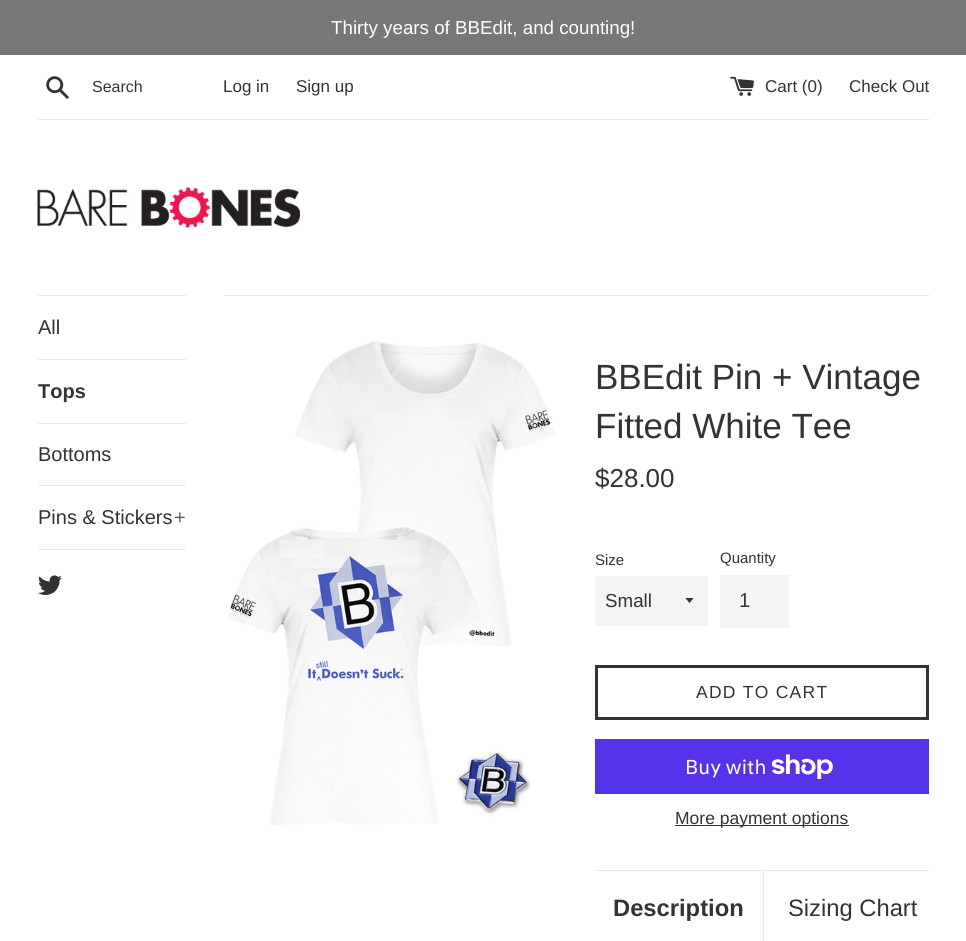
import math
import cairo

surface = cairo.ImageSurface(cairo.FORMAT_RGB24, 966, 941)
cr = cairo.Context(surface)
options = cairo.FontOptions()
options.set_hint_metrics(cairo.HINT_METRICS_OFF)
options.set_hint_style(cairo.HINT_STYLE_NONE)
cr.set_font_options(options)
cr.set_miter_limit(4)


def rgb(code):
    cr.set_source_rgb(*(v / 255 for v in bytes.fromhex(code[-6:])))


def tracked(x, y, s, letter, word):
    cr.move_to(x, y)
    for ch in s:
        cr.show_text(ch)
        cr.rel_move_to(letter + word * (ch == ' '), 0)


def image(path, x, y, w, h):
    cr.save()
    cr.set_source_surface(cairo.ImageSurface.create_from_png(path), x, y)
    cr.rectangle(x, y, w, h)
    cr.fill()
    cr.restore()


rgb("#ffffff")
cr.paint()
rgb("#777777")
cr.rectangle(0, 0, 966, 55)
cr.fill()
image("img/1.png", 46, 76, 23, 23)
image("img/2.png", 730, 76, 24, 20)
rgb("#e8e8e8")
cr.rectangle(38, 119, 891, 1)
cr.fill()
image("img/3.png", 37, 187, 263, 41)
for x, y, w, h, color in [
    (38, 295, 148, 1, "#e8e8e8"),
    (38, 359, 148, 1, "#e8e8e8"),
    (38, 423, 148, 1, "#e8e8e8"),
    (38, 485, 148, 1, "#e8e8e8"),
    (38, 549, 148, 1, "#e8e8e8"),
]:
    rgb(color)
    cr.rectangle(x, y, w, h)
    cr.fill()
image("img/4.png", 38, 575, 24, 20)
cr.rectangle(224, 295, 705, 1)
cr.fill()
image("img/5.png", 227, 341, 329, 484)
rgb("#f4f4f4")
cr.rectangle(595, 576, 113, 50)
cr.fill()
cr.save()
cr.rectangle(685, 598, 10, 6)
cr.clip()
rgb("#333333")
cr.new_path()
cr.move_to(685, 597.5)
cr.line_to(689.5, 603)
cr.line_to(694, 597.5)
cr.close_path()
cr.fill()
cr.restore()
cr.rectangle(720, 575, 69, 53)
cr.fill()
cr.rectangle(596.5, 666.5, 331, 52)
rgb("#333333")
cr.set_line_width(3)
cr.stroke()
rgb("#5433eb")
cr.rectangle(595, 739, 334, 55)
cr.fill()
image("img/6.png", 771, 754, 62, 25)
for x, y, w, h, color in [
    (675, 825, 174, 1, "#333333"),
    (595, 870, 334, 1, "#e8e8e8"),
    (763, 871, 1, 70, "#e8e8e8"),
]:
    rgb(color)
    cr.rectangle(x, y, w, h)
    cr.fill()
cr.select_font_face("Liberation Sans")
cr.set_font_size(18.75)
rgb("#ffffff")
cr.move_to(331, 34)
cr.show_text("Thirty years of BBEdit, and counting!")
cr.set_font_size(16)
rgb("#333333")
cr.move_to(92, 92)
cr.show_text("Search")
cr.set_font_size(17)
for x, y, s in [
    (223, 92, "Log in"),
    (296, 92, "Sign up"),
    (765, 92, "Cart (0)"),
    (849, 92, "Check Out"),
]:
    cr.move_to(x, y)
    cr.show_text(s)
cr.set_font_size(20)
cr.move_to(38, 334)
cr.show_text("All")
cr.select_font_face("Liberation Sans", cairo.FONT_SLANT_NORMAL, cairo.FONT_WEIGHT_BOLD)
cr.move_to(38, 398)
cr.show_text("Tops")
cr.select_font_face("Liberation Sans")
cr.move_to(38, 461)
cr.show_text("Bottoms")
cr.move_to(38, 524)
cr.show_text("Pins & Stickers")
rgb("#5c5c5c")
cr.move_to(174, 524)
cr.show_text("+")
cr.set_font_size(35)
rgb("#333333")
cr.move_to(595, 389)
cr.show_text("BBEdit Pin + Vintage")
cr.move_to(595, 438)
cr.show_text("Fitted White Tee")
cr.set_font_size(26)
cr.move_to(595, 487)
cr.show_text("$28.00")
cr.set_font_size(15)
cr.move_to(595, 565)
cr.show_text("Size")
cr.set_font_size(18.75)
cr.move_to(605, 607)
cr.show_text("Small")
cr.set_font_size(15)
cr.move_to(720, 563)
cr.show_text("Quantity")
cr.set_font_size(20)
cr.move_to(739, 607)
cr.show_text("1")
cr.set_font_size(17.5)
tracked(696, 698, "ADD TO CART", 1.25, 0)
cr.select_font_face("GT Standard")
cr.set_font_size(20)
rgb("#ffffff")
cr.move_to(685, 774)
cr.show_text("Buy with")
cr.select_font_face("Liberation Sans")
cr.set_font_size(17.5)
rgb("#333333")
cr.move_to(675, 824)
cr.show_text("More payment options")
cr.select_font_face("Liberation Sans", cairo.FONT_SLANT_NORMAL, cairo.FONT_WEIGHT_BOLD)
cr.set_font_size(23.75)
cr.move_to(613, 916)
cr.show_text("Description")
cr.select_font_face("Liberation Sans")
cr.move_to(788, 916)
cr.show_text("Sizing Chart")
surface.write_to_png("page.png")
